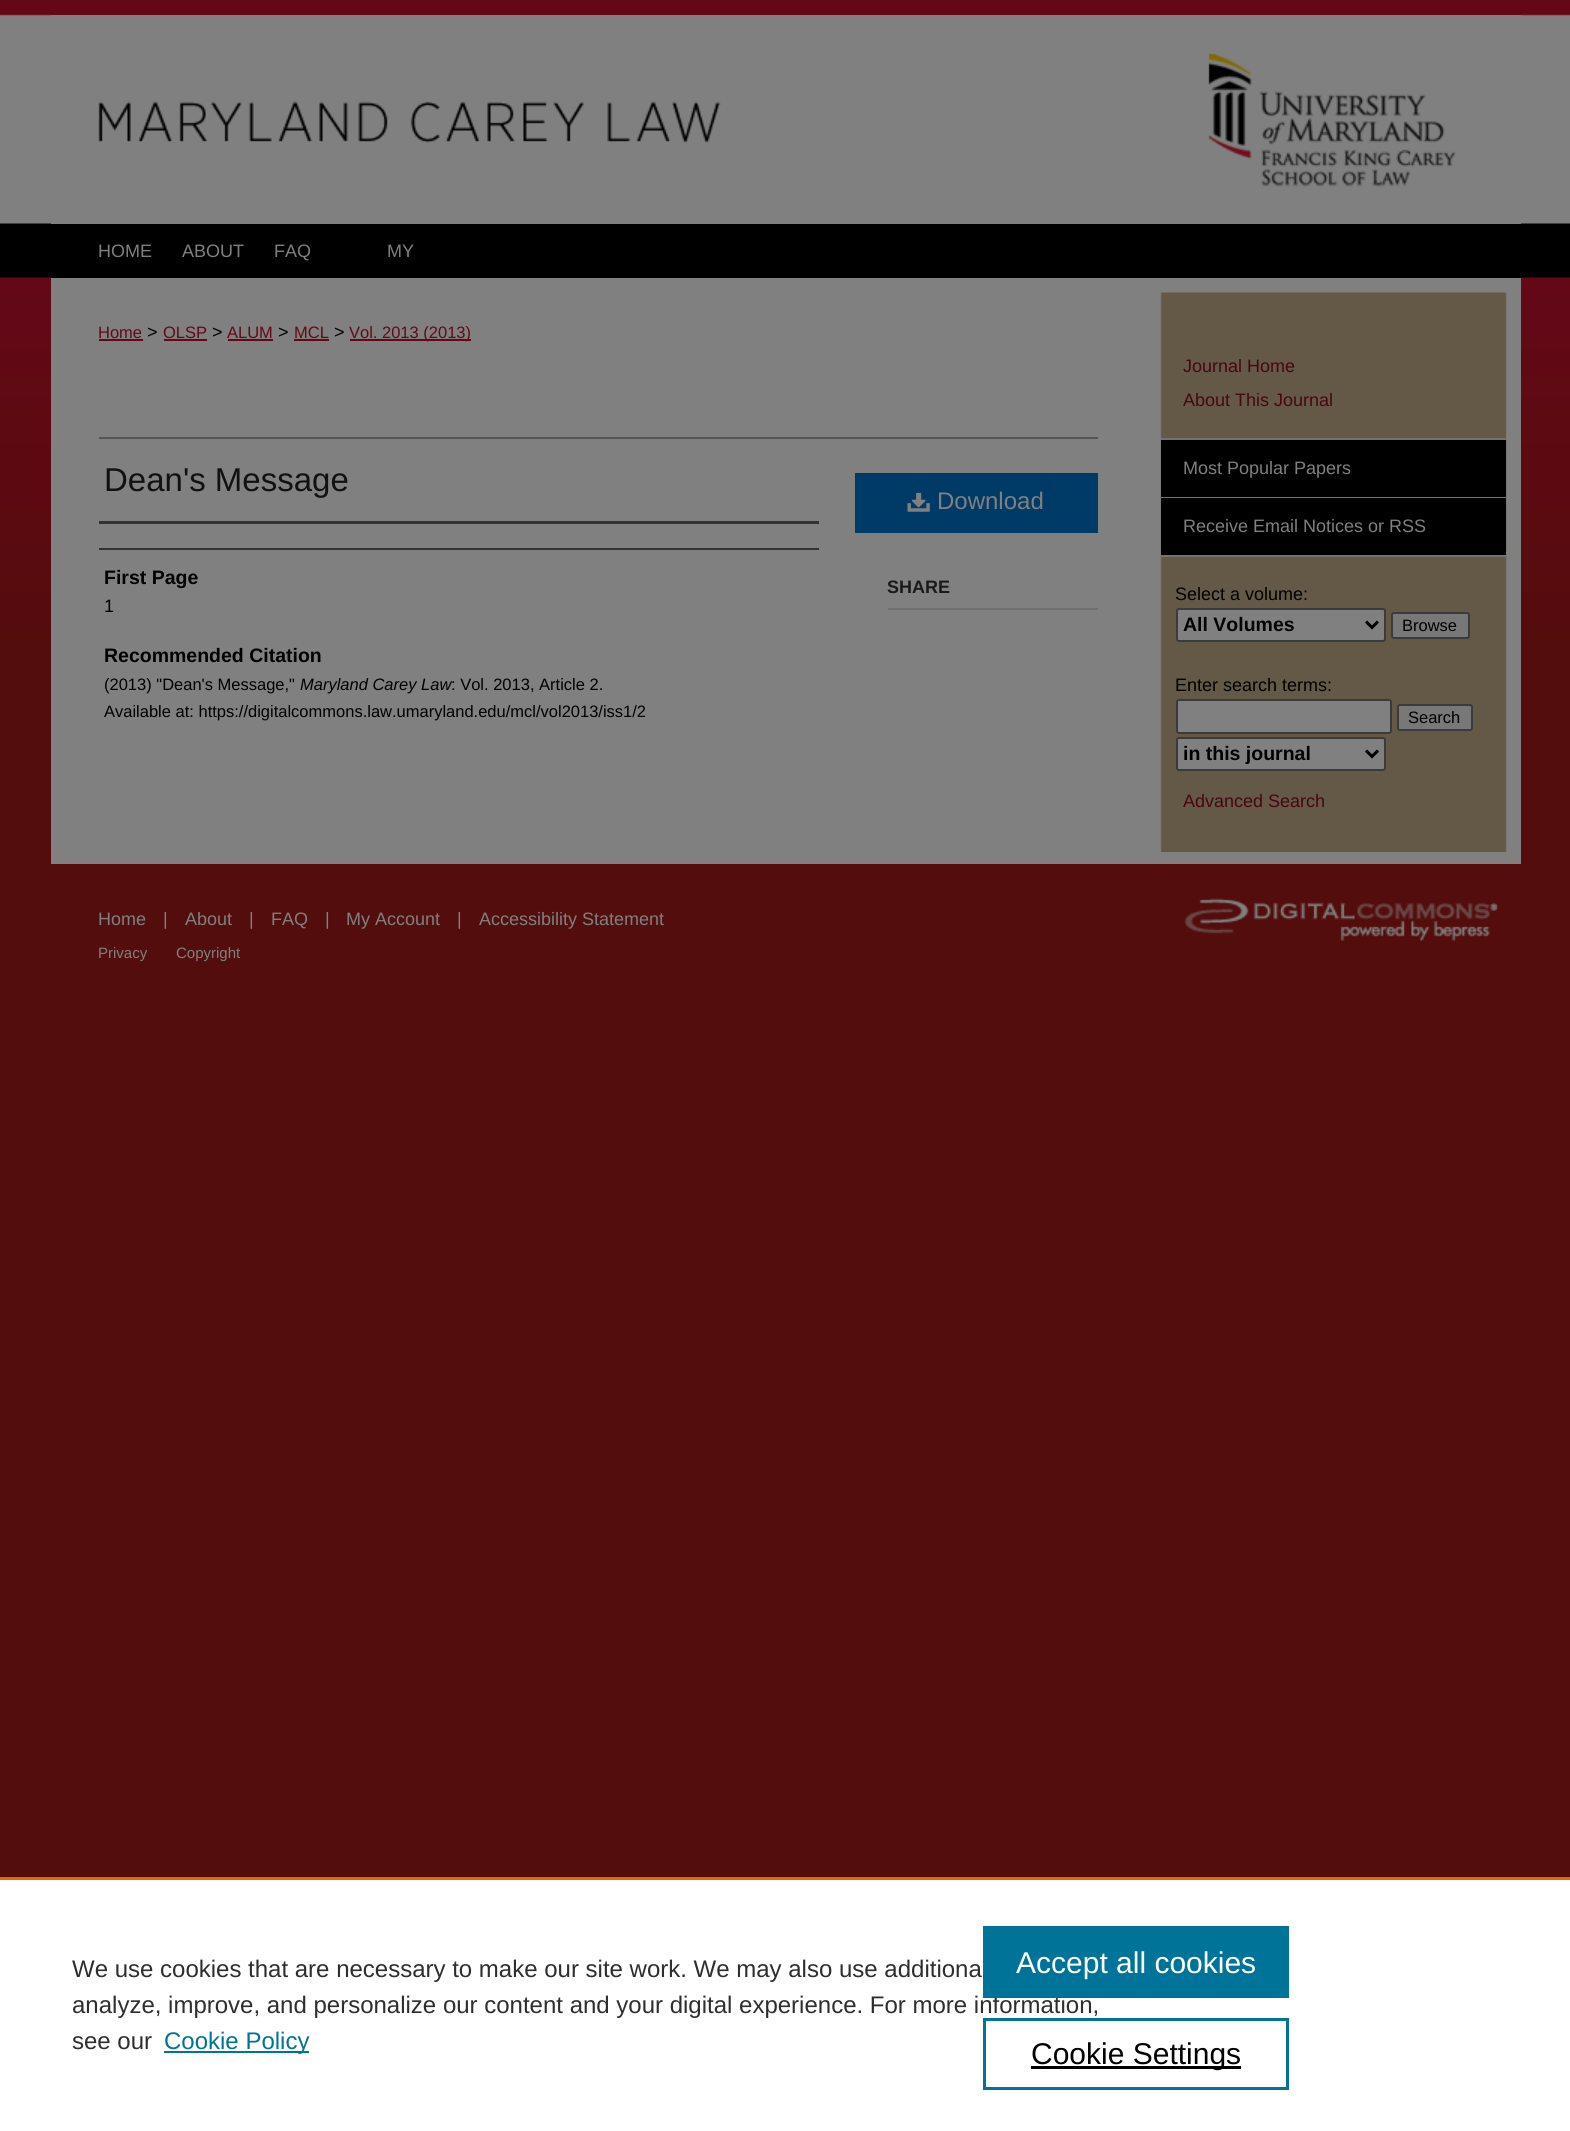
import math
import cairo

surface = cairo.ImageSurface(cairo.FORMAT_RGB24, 1570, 2131)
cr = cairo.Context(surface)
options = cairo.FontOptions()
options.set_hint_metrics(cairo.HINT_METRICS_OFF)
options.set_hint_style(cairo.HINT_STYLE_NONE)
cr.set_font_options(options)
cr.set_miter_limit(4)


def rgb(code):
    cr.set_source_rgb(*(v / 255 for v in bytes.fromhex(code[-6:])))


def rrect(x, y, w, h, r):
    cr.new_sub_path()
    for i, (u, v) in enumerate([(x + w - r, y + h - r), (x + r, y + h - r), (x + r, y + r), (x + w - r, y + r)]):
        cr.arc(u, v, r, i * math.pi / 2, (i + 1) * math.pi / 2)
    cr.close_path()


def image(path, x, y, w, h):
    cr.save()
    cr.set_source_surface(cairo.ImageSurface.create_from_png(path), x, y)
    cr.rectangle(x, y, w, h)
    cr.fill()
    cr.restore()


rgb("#530d0c")
cr.paint()
image("img/1.png", 0, 0, 1570, 640)
rgb("#808080")
cr.rectangle(51, 15, 1470, 209)
cr.fill()
rgb("#640817")
cr.rectangle(51, 14, 1470, 1)
cr.fill()
image("img/2.png", 98, 101, 623, 42)
image("img/3.png", 1208, 53, 248, 134)
rgb("#000000")
cr.rectangle(51, 277, 1470, 1)
cr.fill()
rgb("#808080")
cr.rectangle(51, 278, 1470, 15)
cr.fill()
image("img/4.png", 51, 292, 1470, 560)
for x, y, w, h, color in [
    (99, 339, 44, 2, "#640817"),
    (164, 339, 43, 2, "#640817"),
    (228, 339, 45, 2, "#640817"),
    (294, 339, 35, 2, "#640817"),
    (350, 339, 121, 2, "#640817"),
    (99, 437, 999, 2, "#555555"),
    (99, 521, 720, 3, "#333333"),
    (99, 548, 720, 2, "#333333"),
    (855, 473, 243, 60, "#003a66"),
]:
    rgb(color)
    cr.rectangle(x, y, w, h)
    cr.fill()
image("img/5.png", 907, 492, 23, 20)
for x, y, w, h, color in [
    (888, 608, 210, 2, "#6f6f6f"),
    (1161, 438, 345, 2, "#727272"),
    (1161, 440, 345, 57, "#000000"),
    (1161, 497, 345, 1, "#727272"),
    (1161, 498, 345, 57, "#000000"),
    (1161, 555, 345, 2, "#727272"),
]:
    rgb(color)
    cr.rectangle(x, y, w, h)
    cr.fill()
rgb("#808080")
rrect(1177, 609, 208, 32, 2)
cr.fill_preserve()
rgb("#3b3b3b")
cr.stroke()
cr.new_path()
cr.move_to(1366, 621.5)
cr.line_to(1372, 627.5)
cr.line_to(1378, 621.5)
rgb("#000000")
cr.set_line_width(3)
cr.stroke()
rgb("#787878")
rrect(1392, 613, 77, 25, 2)
cr.fill_preserve()
rgb("#3b3b3b")
cr.set_line_width(2)
cr.stroke()
rgb("#808080")
rrect(1177, 700, 214, 33, 2)
cr.fill_preserve()
rgb("#3b3b3b")
cr.stroke()
rgb("#787878")
rrect(1398, 705, 74, 25, 2)
cr.fill_preserve()
rgb("#3b3b3b")
cr.stroke()
rgb("#808080")
rrect(1177, 738, 208, 32, 2)
cr.fill_preserve()
rgb("#3b3b3b")
cr.stroke()
cr.new_path()
cr.move_to(1366, 750.5)
cr.line_to(1372, 756.5)
cr.line_to(1378, 750.5)
rgb("#000000")
cr.set_line_width(3)
cr.stroke()
rgb("#808080")
cr.rectangle(51, 852, 1470, 12)
cr.fill()
image("img/6.png", 1184, 898, 314, 43)
for x, y, w, h, color in [
    (0, 1880, 1570, 251, "#ffffff"),
    (0, 1877, 1570, 3, "#eb6500"),
    (164, 2051, 145, 2, "#007398"),
]:
    rgb(color)
    cr.rectangle(x, y, w, h)
    cr.fill()
cr.rectangle(984.5, 2019.5, 303, 69)
cr.stroke()
rgb("#000000")
cr.rectangle(1031, 2066, 210, 3)
cr.fill()
cr.select_font_face("Liberation Sans")
cr.set_font_size(18)
rgb("#808080")
for x, y, s in [
    (98, 257, "HOME"),
    (182, 257, "ABOUT"),
    (274, 257, "FAQ"),
    (387, 257, "MY"),
]:
    cr.move_to(x, y)
    cr.show_text(s)
cr.set_font_size(16.5)
rgb("#640817")
cr.move_to(98, 338)
cr.show_text("Home")
cr.set_font_size(18)
rgb("#000000")
cr.move_to(147, 338)
cr.show_text(">")
cr.set_font_size(16.5)
rgb("#640817")
cr.move_to(163, 338)
cr.show_text("OLSP")
cr.set_font_size(18)
rgb("#000000")
cr.move_to(212, 338)
cr.show_text(">")
cr.set_font_size(16.5)
rgb("#640817")
cr.move_to(227, 338)
cr.show_text("ALUM")
cr.set_font_size(18)
rgb("#000000")
cr.move_to(278, 338)
cr.show_text(">")
cr.set_font_size(16.5)
rgb("#640817")
cr.move_to(294, 338)
cr.show_text("MCL")
cr.set_font_size(18)
rgb("#000000")
cr.move_to(334, 338)
cr.show_text(">")
cr.set_font_size(16.5)
rgb("#640817")
cr.move_to(349, 338)
cr.show_text("Vol. 2013 (2013)")
cr.set_font_size(33)
rgb("#111111")
cr.move_to(104, 491)
cr.show_text("Dean's Message")
cr.select_font_face("Liberation Sans", cairo.FONT_SLANT_NORMAL, cairo.FONT_WEIGHT_BOLD)
cr.set_font_size(19.5)
rgb("#000000")
cr.move_to(104, 584)
cr.show_text("First Page")
cr.select_font_face("Liberation Sans")
cr.set_font_size(18)
cr.move_to(104, 612)
cr.show_text("1")
cr.select_font_face("Liberation Sans", cairo.FONT_SLANT_NORMAL, cairo.FONT_WEIGHT_BOLD)
cr.set_font_size(19.5)
cr.move_to(104, 662)
cr.show_text("Recommended Citation")
cr.select_font_face("Liberation Sans")
cr.set_font_size(16.5)
cr.move_to(104, 690)
cr.show_text("(2013) \"Dean's Message,\"")
cr.select_font_face("Liberation Sans", cairo.FONT_SLANT_ITALIC)
cr.move_to(300, 690)
cr.show_text("Maryland Carey Law")
cr.select_font_face("Liberation Sans")
cr.move_to(451, 690)
cr.show_text(": Vol. 2013, Article 2.")
cr.move_to(104, 717)
cr.show_text("Available at: https://digitalcommons.law.umaryland.edu/mcl/vol2013/iss1/2")
cr.set_font_size(24)
rgb("#808080")
cr.move_to(937, 509)
cr.show_text("Download")
cr.select_font_face("Liberation Sans", cairo.FONT_SLANT_NORMAL, cairo.FONT_WEIGHT_BOLD)
cr.set_font_size(18)
rgb("#1a1a1a")
cr.move_to(887, 593)
cr.show_text("SHARE")
cr.select_font_face("Liberation Sans")
rgb("#480611")
cr.move_to(1183, 372)
cr.show_text("Journal Home")
cr.move_to(1183, 406)
cr.show_text("About This Journal")
rgb("#808080")
cr.move_to(1183, 474)
cr.show_text("Most Popular Papers")
cr.move_to(1183, 532)
cr.show_text("Receive Email Notices or RSS")
rgb("#000000")
cr.move_to(1175, 600)
cr.show_text("Select a volume:")
cr.select_font_face("Liberation Sans", cairo.FONT_SLANT_NORMAL, cairo.FONT_WEIGHT_BOLD)
cr.set_font_size(19.5)
cr.move_to(1183, 631)
cr.show_text("All Volumes")
cr.select_font_face("Liberation Sans")
cr.set_font_size(16.5)
cr.move_to(1402, 631)
cr.show_text("Browse")
cr.set_font_size(18)
cr.move_to(1175, 691)
cr.show_text("Enter search terms:")
cr.set_font_size(16.5)
cr.move_to(1408, 723)
cr.show_text("Search")
cr.select_font_face("Liberation Sans", cairo.FONT_SLANT_NORMAL, cairo.FONT_WEIGHT_BOLD)
cr.set_font_size(19.5)
cr.move_to(1183, 760)
cr.show_text("in this journal")
cr.select_font_face("Liberation Sans")
cr.set_font_size(18)
rgb("#480611")
cr.move_to(1183, 807)
cr.show_text("Advanced Search")
rgb("#808080")
for x, y, s in [
    (98, 925, "Home"),
    (163, 925, "|"),
    (185, 925, "About"),
    (249, 925, "|"),
    (271, 925, "FAQ"),
    (325, 925, "|"),
    (346, 925, "My Account"),
    (457, 925, "|"),
    (479, 925, "Accessibility Statement"),
]:
    cr.move_to(x, y)
    cr.show_text(s)
cr.set_font_size(15)
cr.move_to(98, 958)
cr.show_text("Privacy")
cr.move_to(176, 958)
cr.show_text("Copyright")
cr.set_font_size(24)
rgb("#2e2e2e")
for x, y, s in [
    (72, 1977, "We use cookies that are necessary to make our site work. We may also use additiona"),
    (72, 2013, "analyze, improve, and personalize our content and your digital experience. For more information,"),
    (72, 2049, "see our"),
]:
    cr.move_to(x, y)
    cr.show_text(s)
rgb("#007398")
cr.move_to(164, 2049)
cr.show_text("Cookie Policy")
cr.rectangle(983, 1926, 306, 72)
cr.fill()
cr.set_font_size(30)
rgb("#ffffff")
cr.move_to(1016, 1973)
cr.show_text("Accept all cookies")
rgb("#000000")
cr.move_to(1031, 2064)
cr.show_text("Cookie Settings")
surface.write_to_png("page.png")
